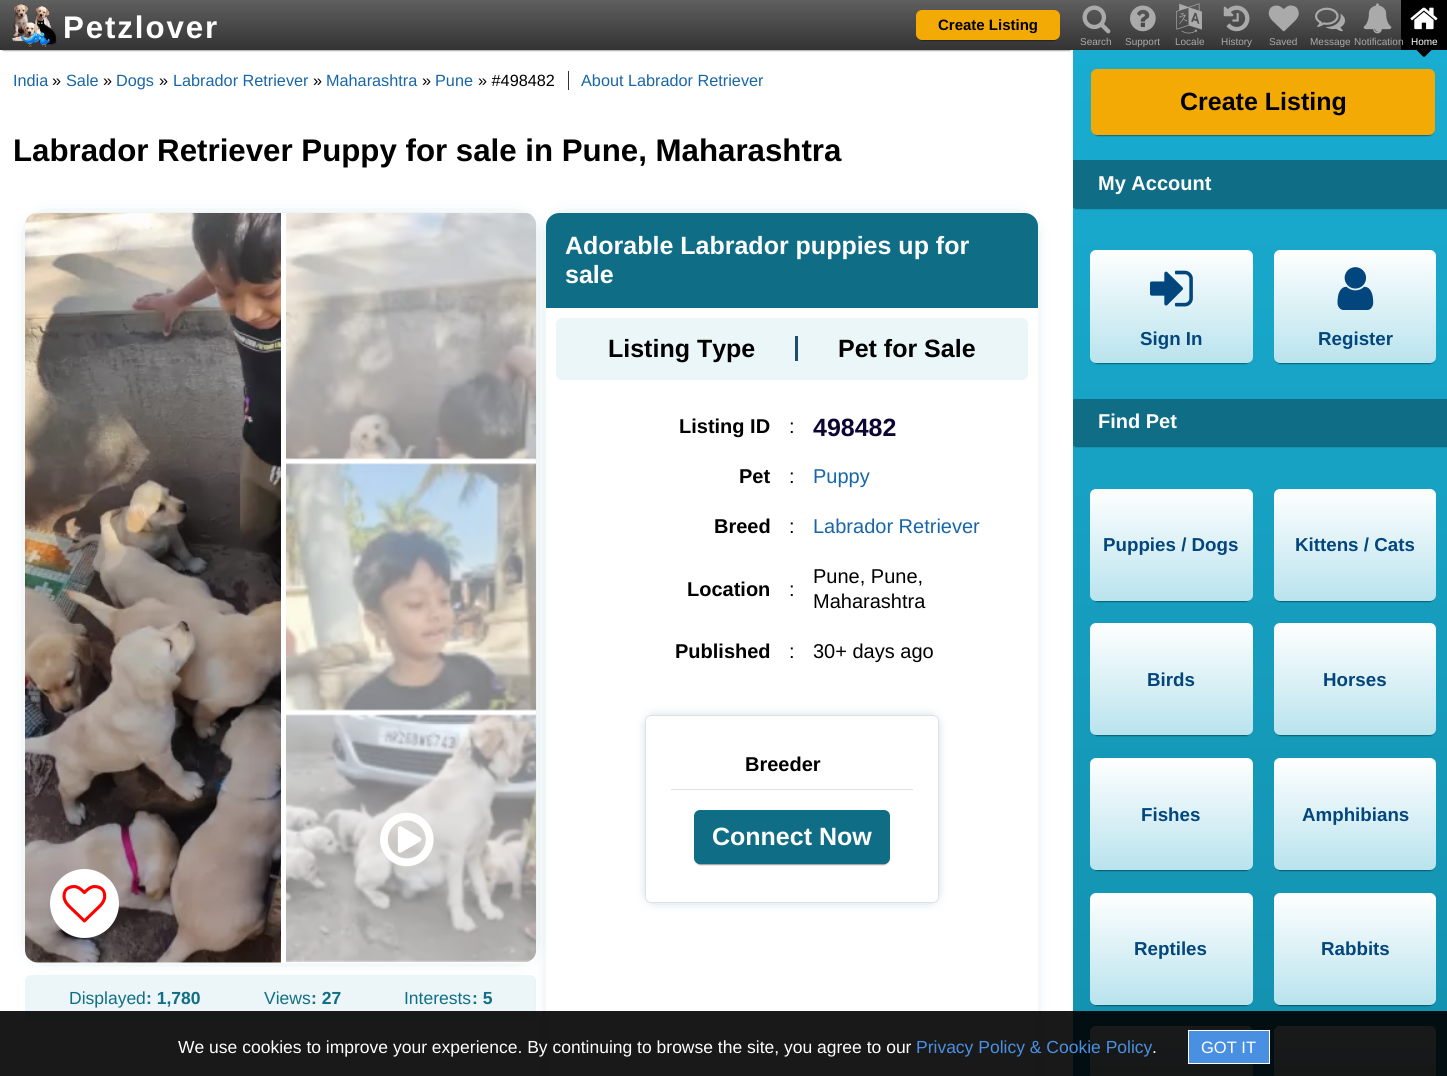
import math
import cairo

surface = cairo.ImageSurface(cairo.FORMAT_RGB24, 1447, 1076)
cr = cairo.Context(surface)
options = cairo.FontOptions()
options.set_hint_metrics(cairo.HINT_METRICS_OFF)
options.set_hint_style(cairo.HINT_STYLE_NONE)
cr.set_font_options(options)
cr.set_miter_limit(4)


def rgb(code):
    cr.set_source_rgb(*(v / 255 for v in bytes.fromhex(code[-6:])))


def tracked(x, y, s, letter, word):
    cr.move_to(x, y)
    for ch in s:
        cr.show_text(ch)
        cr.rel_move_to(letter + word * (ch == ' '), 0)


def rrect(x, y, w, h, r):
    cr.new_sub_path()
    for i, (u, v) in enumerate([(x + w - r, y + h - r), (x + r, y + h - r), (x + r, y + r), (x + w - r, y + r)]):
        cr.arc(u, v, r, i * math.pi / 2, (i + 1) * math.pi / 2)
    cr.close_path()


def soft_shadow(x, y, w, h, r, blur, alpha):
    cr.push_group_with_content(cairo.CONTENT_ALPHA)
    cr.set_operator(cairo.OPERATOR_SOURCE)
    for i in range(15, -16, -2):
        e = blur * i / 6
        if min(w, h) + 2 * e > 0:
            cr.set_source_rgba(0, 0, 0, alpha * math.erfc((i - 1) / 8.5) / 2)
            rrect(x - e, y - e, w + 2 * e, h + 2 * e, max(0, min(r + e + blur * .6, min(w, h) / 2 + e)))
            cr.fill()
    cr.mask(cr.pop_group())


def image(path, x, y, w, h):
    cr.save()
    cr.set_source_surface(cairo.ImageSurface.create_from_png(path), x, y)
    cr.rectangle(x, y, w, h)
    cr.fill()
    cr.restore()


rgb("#ffffff")
cr.paint()
rgb("#000000")
soft_shadow(3, 5, 1067, 45, 0, 1, 0.82)
gradient = cairo.LinearGradient(536, 0, 536, 50)
gradient.add_color_stop_rgba(0, 0.373, 0.373, 0.373, 1)
gradient.add_color_stop_rgba(1, 0.2, 0.2, 0.2, 1)
cr.set_source(gradient)
cr.rectangle(0, 0, 1073, 50)
cr.fill()
image("img/1.png", 12, 3, 45, 45)
rgb("#000000")
soft_shadow(919, 15, 139, 25, 4, 1, 1)
rgb("#f3aa05")
rrect(916, 10, 144, 30, 6)
cr.fill()
gradient = cairo.LinearGradient(1260, 0, 1260, 50)
gradient.add_color_stop_rgba(0, 0.373, 0.373, 0.373, 1)
gradient.add_color_stop_rgba(1, 0.2, 0.2, 0.2, 1)
cr.set_source(gradient)
cr.rectangle(1073, 0, 328, 50)
cr.fill()
rgb("#000000")
cr.rectangle(1401, 0, 46, 50)
cr.fill()
gradient = cairo.LinearGradient(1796, 50, 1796, 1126)
gradient.add_color_stop_rgba(0, 0.098, 0.678, 0.82, 1)
gradient.add_color_stop_rgba(1, 0.075, 0.561, 0.678, 1)
cr.set_source(gradient)
cr.rectangle(1073, 50, 374, 1026)
cr.fill()
rgb("#000000")
cr.new_path()
cr.move_to(1425, 41)
cr.line_to(1432, 48)
cr.curve_to(1432.5, 48.5, 1432.5, 49, 1432, 49.5)
cr.line_to(1425, 56.5)
cr.curve_to(1424.5, 57, 1423.5, 57, 1423, 56.5)
cr.line_to(1416, 49.5)
cr.curve_to(1415.5, 49, 1415.5, 48.5, 1416, 48)
cr.line_to(1423, 41)
cr.curve_to(1423.5, 40.5, 1424.5, 40.5, 1425, 41)
cr.close_path()
cr.fill()
image("img/2.png", 1082, 5, 29, 29)
image("img/3.png", 1130, 5, 26, 27)
image("img/4.png", 1176, 3, 26, 31)
image("img/5.png", 1223, 5, 27, 27)
image("img/6.png", 1268, 5, 31, 27)
image("img/7.png", 1315, 7, 30, 25)
image("img/8.png", 1363, 3, 29, 31)
image("img/9.png", 1410, 7, 28, 23)
rgb("#000000")
soft_shadow(1094, 74, 339, 61, 4, 1, 1)
rgb("#f3aa05")
rrect(1091, 69, 344, 66, 6)
cr.fill()
rgb("#000000")
soft_shadow(1075, 165, 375, 43, 0, 1, 1)
rgb("#0f6e85")
cr.rectangle(1073, 160, 374, 48)
cr.fill()
rgb("#000000")
soft_shadow(1093, 255, 157, 108, 4, 1, 1)
gradient = cairo.LinearGradient(1171, 250, 1171, 363)
gradient.add_color_stop_rgba(0, 1, 1, 1, 1)
gradient.add_color_stop_rgba(1, 0.725, 0.89, 0.929, 1)
cr.set_source(gradient)
rrect(1090, 250, 163, 113, 6)
cr.fill()
image("img/10.png", 1150, 270, 43, 37)
rgb("#000000")
soft_shadow(1276, 255, 158, 108, 4, 1, 1)
gradient = cairo.LinearGradient(1355, 250, 1355, 363)
gradient.add_color_stop_rgba(0, 1, 1, 1, 1)
gradient.add_color_stop_rgba(1, 0.725, 0.89, 0.929, 1)
cr.set_source(gradient)
rrect(1274, 250, 162, 113, 6)
cr.fill()
image("img/11.png", 1337, 267, 37, 43)
rgb("#000000")
soft_shadow(1075, 404, 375, 42, 0, 1, 1)
rgb("#0f6e85")
cr.rectangle(1073, 399, 374, 47)
cr.fill()
rgb("#000000")
soft_shadow(1093, 494, 157, 107, 4, 1, 1)
gradient = cairo.LinearGradient(1171, 489, 1171, 601)
gradient.add_color_stop_rgba(0, 1, 1, 1, 1)
gradient.add_color_stop_rgba(1, 0.725, 0.89, 0.929, 1)
cr.set_source(gradient)
rrect(1090, 489, 163, 112, 6)
cr.fill()
rgb("#000000")
soft_shadow(1276, 494, 158, 107, 4, 1, 1)
gradient = cairo.LinearGradient(1355, 489, 1355, 601)
gradient.add_color_stop_rgba(0, 1, 1, 1, 1)
gradient.add_color_stop_rgba(1, 0.725, 0.89, 0.929, 1)
cr.set_source(gradient)
rrect(1274, 489, 162, 112, 6)
cr.fill()
rgb("#000000")
soft_shadow(1093, 628, 157, 107, 4, 1, 1)
gradient = cairo.LinearGradient(1171, 623, 1171, 735)
gradient.add_color_stop_rgba(0, 1, 1, 1, 1)
gradient.add_color_stop_rgba(1, 0.725, 0.89, 0.929, 1)
cr.set_source(gradient)
rrect(1090, 623, 163, 112, 6)
cr.fill()
rgb("#000000")
soft_shadow(1276, 628, 158, 107, 4, 1, 1)
gradient = cairo.LinearGradient(1355, 623, 1355, 735)
gradient.add_color_stop_rgba(0, 1, 1, 1, 1)
gradient.add_color_stop_rgba(1, 0.725, 0.89, 0.929, 1)
cr.set_source(gradient)
rrect(1274, 623, 162, 112, 6)
cr.fill()
rgb("#000000")
soft_shadow(1093, 763, 157, 107, 4, 1, 1)
gradient = cairo.LinearGradient(1171, 758, 1171, 870)
gradient.add_color_stop_rgba(0, 1, 1, 1, 1)
gradient.add_color_stop_rgba(1, 0.725, 0.89, 0.929, 1)
cr.set_source(gradient)
rrect(1090, 758, 163, 112, 6)
cr.fill()
rgb("#000000")
soft_shadow(1276, 763, 158, 107, 4, 1, 1)
gradient = cairo.LinearGradient(1355, 758, 1355, 870)
gradient.add_color_stop_rgba(0, 1, 1, 1, 1)
gradient.add_color_stop_rgba(1, 0.725, 0.89, 0.929, 1)
cr.set_source(gradient)
rrect(1274, 758, 162, 112, 6)
cr.fill()
rgb("#000000")
soft_shadow(1093, 898, 157, 107, 4, 1, 1)
gradient = cairo.LinearGradient(1171, 893, 1171, 1005)
gradient.add_color_stop_rgba(0, 1, 1, 1, 1)
gradient.add_color_stop_rgba(1, 0.725, 0.89, 0.929, 1)
cr.set_source(gradient)
rrect(1090, 893, 163, 112, 6)
cr.fill()
rgb("#000000")
soft_shadow(1276, 898, 158, 107, 4, 1, 1)
gradient = cairo.LinearGradient(1355, 893, 1355, 1005)
gradient.add_color_stop_rgba(0, 1, 1, 1, 1)
gradient.add_color_stop_rgba(1, 0.725, 0.89, 0.929, 1)
cr.set_source(gradient)
rrect(1274, 893, 162, 112, 6)
cr.fill()
gradient = cairo.LinearGradient(1171, 1026, 1171, 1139)
gradient.add_color_stop_rgba(0, 1, 1, 1, 1)
gradient.add_color_stop_rgba(1, 0.725, 0.89, 0.929, 1)
cr.set_source(gradient)
cr.new_path()
cr.move_to(1096, 1026)
cr.line_to(1247, 1026)
cr.curve_to(1250.5, 1026, 1253, 1028.5, 1253, 1032)
cr.line_to(1253, 1076)
cr.line_to(1090, 1076)
cr.line_to(1090, 1032)
cr.curve_to(1090, 1028.5, 1092.5, 1026, 1096, 1026)
cr.close_path()
cr.fill()
gradient = cairo.LinearGradient(1355, 1026, 1355, 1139)
gradient.add_color_stop_rgba(0, 1, 1, 1, 1)
gradient.add_color_stop_rgba(1, 0.725, 0.89, 0.929, 1)
cr.set_source(gradient)
cr.new_path()
cr.move_to(1280, 1026)
cr.line_to(1430, 1026)
cr.curve_to(1433.5, 1026, 1436, 1028.5, 1436, 1032)
cr.line_to(1436, 1076)
cr.line_to(1274, 1076)
cr.line_to(1274, 1032)
cr.curve_to(1274, 1028.5, 1276.5, 1026, 1280, 1026)
cr.close_path()
cr.fill()
rgb("#333333")
cr.rectangle(568, 71, 1, 19)
cr.fill()
rgb("#ecf5f8")
rrect(25, 975, 511, 45, 6)
cr.fill()
cr.save()
cr.set_fill_rule(cairo.FILL_RULE_EVEN_ODD)
cr.new_path()
cr.move_to(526, 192)
cr.line_to(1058, 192)
cr.line_to(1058, 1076)
cr.line_to(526, 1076)
cr.close_path()
cr.move_to(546, 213)
cr.line_to(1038, 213)
cr.line_to(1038, 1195)
cr.line_to(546, 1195)
cr.close_path()
cr.clip()
rgb("#0f6e85")
soft_shadow(565, 231, 454, 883, 0, 12.5, 1)
cr.restore()
rgb("#0f6e85")
cr.new_path()
cr.move_to(559, 213)
cr.line_to(1025, 213)
cr.curve_to(1032, 213, 1038, 219, 1038, 226)
cr.line_to(1038, 308)
cr.line_to(546, 308)
cr.line_to(546, 226)
cr.curve_to(546, 219, 552, 213, 559, 213)
cr.close_path()
cr.fill()
cr.save()
cr.set_fill_rule(cairo.FILL_RULE_EVEN_ODD)
cr.new_path()
cr.move_to(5, 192)
cr.line_to(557, 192)
cr.line_to(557, 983)
cr.line_to(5, 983)
cr.close_path()
cr.move_to(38, 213)
cr.line_to(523, 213)
cr.curve_to(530, 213, 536, 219, 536, 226)
cr.line_to(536, 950)
cr.curve_to(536, 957, 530, 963, 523, 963)
cr.line_to(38, 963)
cr.curve_to(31, 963, 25, 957, 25, 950)
cr.line_to(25, 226)
cr.curve_to(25, 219, 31, 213, 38, 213)
cr.close_path()
cr.clip()
rgb("#0f6e85")
soft_shadow(44, 231, 474, 713, 0, 12.5, 1)
cr.restore()
rgb("#eaf6f8")
rrect(556, 318, 472, 62, 6)
cr.fill()
rgb("#1e4c6e")
cr.rectangle(795, 336, 3, 25)
cr.fill()
cr.save()
cr.set_fill_rule(cairo.FILL_RULE_EVEN_ODD)
cr.new_path()
cr.move_to(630, 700)
cr.line_to(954, 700)
cr.line_to(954, 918)
cr.line_to(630, 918)
cr.close_path()
cr.move_to(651, 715)
cr.line_to(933, 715)
cr.curve_to(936.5, 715, 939, 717.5, 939, 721)
cr.line_to(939, 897)
cr.curve_to(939, 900.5, 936.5, 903, 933, 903)
cr.line_to(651, 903)
cr.curve_to(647.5, 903, 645, 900.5, 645, 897)
cr.line_to(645, 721)
cr.curve_to(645, 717.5, 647.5, 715, 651, 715)
cr.close_path()
cr.clip()
rgb("#0f6e85")
soft_shadow(654, 724, 276, 170, 0, 7.5, 1)
cr.restore()
rrect(645.5, 715.5, 293, 187, 5.5)
rgb("#dfdfdf")
cr.set_line_width(1)
cr.stroke()
cr.rectangle(671, 789, 242, 1)
cr.fill()
rgb("#000000")
soft_shadow(696, 815, 192, 49, 4, 1, 1)
rgb("#0f6e85")
rrect(694, 810, 196, 54, 6)
cr.fill()
image("img/12.png", 25, 213, 256, 750)
image("img/13.png", 286, 213, 250, 247)
image("img/14.png", 286, 463, 250, 248)
image("img/15.png", 286, 714, 250, 248)
image("img/16.png", 380, 812, 54, 55)
rgb("#ffffff")
cr.arc(84.5, 903.5, 34.5, 0, 2 * math.pi)
cr.fill()
image("img/17.png", 62, 885, 45, 38)
cr.set_source_rgba(0, 0, 0, 0.9)
cr.rectangle(0, 1011, 1447, 65)
cr.fill()
rgb("#4a90e2")
cr.rectangle(1188.5, 1030.5, 81, 33)
cr.fill_preserve()
rgb("#ffffff")
cr.stroke()
cr.select_font_face("Liberation Sans", cairo.FONT_SLANT_NORMAL, cairo.FONT_WEIGHT_BOLD)
cr.set_font_size(31.25)
tracked(63, 38, "Petzlover", 1.9, 0)
cr.set_font_size(15)
rgb("#000000")
cr.move_to(938, 30)
cr.show_text("Create Listing")
cr.select_font_face("Liberation Sans")
cr.set_font_size(10)
rgb("#aaaaaa")
for x, y, s in [
    (1080, 45, "Search"),
    (1125, 45, "Support"),
    (1175, 45, "Locale"),
    (1221, 45, "History"),
    (1269, 45, "Saved"),
    (1310, 45, "Message"),
    (1354, 45, "Notification"),
]:
    cr.move_to(x, y)
    cr.show_text(s)
rgb("#ffffff")
cr.move_to(1411, 45)
cr.show_text("Home")
cr.select_font_face("Liberation Sans", cairo.FONT_SLANT_NORMAL, cairo.FONT_WEIGHT_BOLD)
cr.set_font_size(25)
rgb("#000000")
cr.move_to(1180, 110)
cr.show_text("Create Listing")
cr.set_font_size(20)
rgb("#ffffff")
cr.move_to(1098, 190)
cr.show_text("My Account")
cr.set_font_size(18.75)
rgb("#02467d")
cr.move_to(1140, 345)
cr.show_text("Sign In")
cr.move_to(1318, 345)
cr.show_text("Register")
cr.set_font_size(20)
rgb("#ffffff")
cr.move_to(1098, 428)
cr.show_text("Find Pet")
cr.set_font_size(18.75)
rgb("#02467d")
for x, y, s in [
    (1103, 551, "Puppies / Dogs"),
    (1295, 551, "Kittens / Cats"),
    (1147, 686, "Birds"),
    (1323, 686, "Horses"),
    (1141, 821, "Fishes"),
    (1302, 821, "Amphibians"),
    (1134, 955, "Reptiles"),
    (1321, 955, "Rabbits"),
]:
    cr.move_to(x, y)
    cr.show_text(s)
cr.select_font_face("Liberation Sans")
cr.set_font_size(16.25)
rgb("#1866a7")
cr.move_to(13, 86)
cr.show_text("India")
rgb("#000000")
cr.move_to(52, 86)
cr.show_text("»")
rgb("#1866a7")
cr.move_to(66, 86)
cr.show_text("Sale")
rgb("#000000")
cr.move_to(103, 86)
cr.show_text("»")
rgb("#1866a7")
cr.move_to(116, 86)
cr.show_text("Dogs")
rgb("#000000")
cr.move_to(159, 86)
cr.show_text("»")
rgb("#1866a7")
cr.move_to(173, 86)
cr.show_text("Labrador Retriever")
rgb("#000000")
cr.move_to(313, 86)
cr.show_text("»")
rgb("#1866a7")
cr.move_to(326, 86)
cr.show_text("Maharashtra")
rgb("#000000")
cr.move_to(422, 86)
cr.show_text("»")
rgb("#1866a7")
cr.move_to(435, 86)
cr.show_text("Pune")
rgb("#000000")
cr.move_to(478, 86)
cr.show_text("» #498482")
rgb("#1866a7")
cr.move_to(581, 86)
cr.show_text("About Labrador Retriever")
cr.select_font_face("Liberation Sans", cairo.FONT_SLANT_NORMAL, cairo.FONT_WEIGHT_BOLD)
cr.set_font_size(31.25)
rgb("#000000")
cr.move_to(13, 161)
cr.show_text("Labrador Retriever Puppy for sale in Pune, Maharashtra")
cr.set_font_size(25)
rgb("#ffffff")
cr.move_to(565, 254)
cr.show_text("Adorable Labrador puppies up for")
cr.move_to(565, 283)
cr.show_text("sale")
rgb("#000000")
cr.move_to(608, 357)
cr.show_text("Listing Type")
cr.move_to(838, 357)
cr.show_text("Pet for Sale")
cr.set_font_size(20)
cr.move_to(679, 433)
cr.show_text("Listing ID")
cr.select_font_face("Liberation Sans")
cr.move_to(789, 433)
cr.show_text(":")
cr.select_font_face("Liberation Sans", cairo.FONT_SLANT_NORMAL, cairo.FONT_WEIGHT_BOLD)
cr.set_font_size(25)
rgb("#0d0633")
cr.move_to(813, 436)
cr.show_text("498482")
cr.set_font_size(20)
rgb("#000000")
cr.move_to(739, 483)
cr.show_text("Pet")
cr.select_font_face("Liberation Sans")
cr.move_to(789, 483)
cr.show_text(":")
rgb("#1866a7")
cr.move_to(813, 483)
cr.show_text("Puppy")
cr.select_font_face("Liberation Sans", cairo.FONT_SLANT_NORMAL, cairo.FONT_WEIGHT_BOLD)
rgb("#000000")
cr.move_to(714, 533)
cr.show_text("Breed")
cr.select_font_face("Liberation Sans")
cr.move_to(789, 533)
cr.show_text(":")
rgb("#1866a7")
cr.move_to(813, 533)
cr.show_text("Labrador Retriever")
cr.select_font_face("Liberation Sans", cairo.FONT_SLANT_NORMAL, cairo.FONT_WEIGHT_BOLD)
rgb("#000000")
cr.move_to(687, 596)
cr.show_text("Location")
cr.select_font_face("Liberation Sans")
for x, y, s in [
    (789, 596, ":"),
    (813, 583, "Pune, Pune,"),
    (813, 608, "Maharashtra"),
]:
    cr.move_to(x, y)
    cr.show_text(s)
cr.select_font_face("Liberation Sans", cairo.FONT_SLANT_NORMAL, cairo.FONT_WEIGHT_BOLD)
cr.move_to(675, 658)
cr.show_text("Published")
cr.select_font_face("Liberation Sans")
cr.move_to(789, 658)
cr.show_text(":")
cr.move_to(813, 658)
cr.show_text("30+ days ago")
cr.select_font_face("Liberation Sans", cairo.FONT_SLANT_NORMAL, cairo.FONT_WEIGHT_BOLD)
cr.move_to(745, 771)
cr.show_text("Breeder")
cr.set_font_size(25)
rgb("#ffffff")
cr.move_to(712, 845)
cr.show_text("Connect Now")
cr.select_font_face("Liberation Sans")
cr.set_font_size(17.5)
rgb("#106e85")
cr.move_to(69, 1004)
cr.show_text("Displayed")
cr.select_font_face("Liberation Sans", cairo.FONT_SLANT_NORMAL, cairo.FONT_WEIGHT_BOLD)
cr.move_to(146, 1004)
cr.show_text(": 1,780")
cr.select_font_face("Liberation Sans")
cr.move_to(264, 1004)
cr.show_text("Views")
cr.select_font_face("Liberation Sans", cairo.FONT_SLANT_NORMAL, cairo.FONT_WEIGHT_BOLD)
cr.move_to(311, 1004)
cr.show_text(": 27")
cr.select_font_face("Liberation Sans")
cr.move_to(404, 1004)
cr.show_text("Interests")
cr.select_font_face("Liberation Sans", cairo.FONT_SLANT_NORMAL, cairo.FONT_WEIGHT_BOLD)
cr.move_to(472, 1004)
cr.show_text(": 5")
cr.select_font_face("Liberation Sans")
rgb("#ffffff")
cr.move_to(178, 1053)
cr.show_text("We use cookies to improve your experience. By continuing to browse the site, you agree to our")
rgb("#4a90e2")
cr.move_to(916, 1053)
cr.show_text("Privacy Policy & Cookie Policy")
rgb("#ffffff")
cr.move_to(1152, 1053)
cr.show_text(".")
cr.set_font_size(16.5)
cr.move_to(1201, 1053)
cr.show_text("GOT IT")
surface.write_to_png("page.png")
